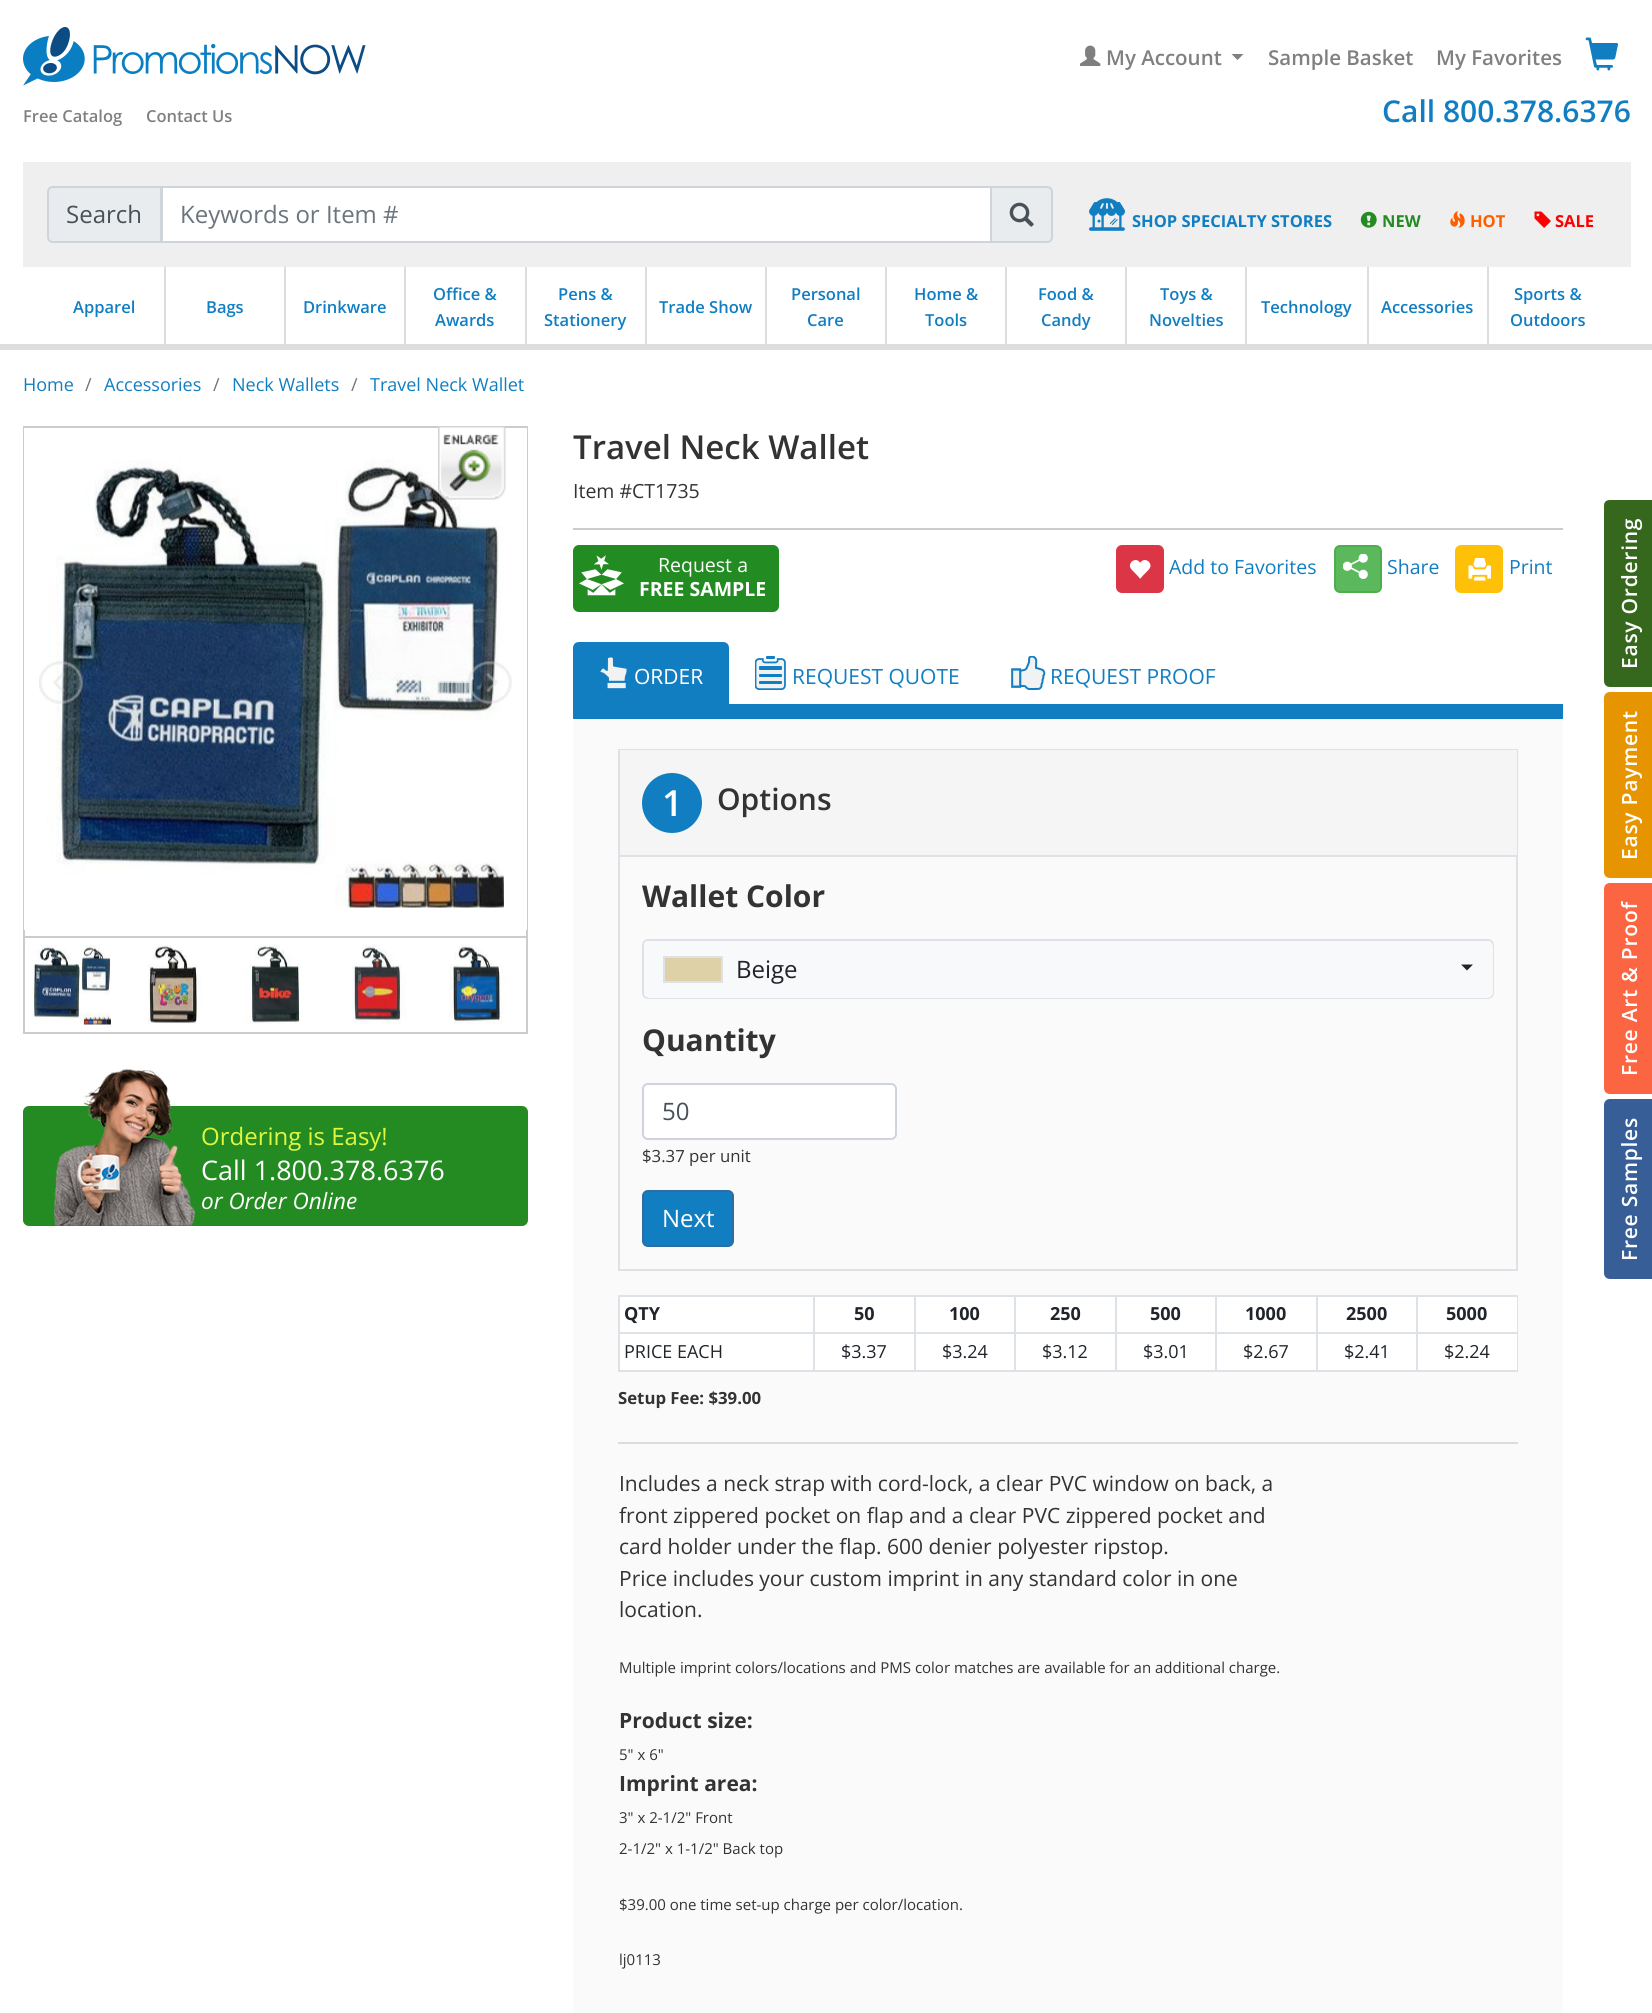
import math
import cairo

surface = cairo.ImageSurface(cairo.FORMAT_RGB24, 1652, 2013)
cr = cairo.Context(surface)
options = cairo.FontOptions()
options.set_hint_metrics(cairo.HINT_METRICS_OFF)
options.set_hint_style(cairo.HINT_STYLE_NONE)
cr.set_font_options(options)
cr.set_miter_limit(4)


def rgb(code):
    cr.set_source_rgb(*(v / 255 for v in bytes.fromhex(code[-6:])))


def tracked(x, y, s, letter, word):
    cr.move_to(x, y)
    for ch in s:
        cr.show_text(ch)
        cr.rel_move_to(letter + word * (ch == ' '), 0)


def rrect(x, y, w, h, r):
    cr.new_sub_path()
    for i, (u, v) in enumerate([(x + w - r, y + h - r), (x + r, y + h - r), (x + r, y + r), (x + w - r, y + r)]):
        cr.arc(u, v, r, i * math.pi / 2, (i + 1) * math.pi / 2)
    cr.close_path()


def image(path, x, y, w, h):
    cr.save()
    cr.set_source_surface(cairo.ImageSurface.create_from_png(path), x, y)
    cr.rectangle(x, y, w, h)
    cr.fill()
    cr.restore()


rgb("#ffffff")
cr.paint()
rgb("#dddddd")
cr.rectangle(0, 344, 1652, 6)
cr.fill()
image("img/1.png", 23, 27, 343, 59)
image("img/2.png", 1080, 45, 21, 21)
rgb("#808080")
cr.new_path()
cr.move_to(1231.5, 54)
cr.line_to(1243.5, 54)
cr.line_to(1237.5, 60)
cr.close_path()
cr.fill()
image("img/3.png", 1585, 37, 33, 34)
rgb("#efefef")
cr.rectangle(23, 162, 1608, 105)
cr.fill()
rgb("#e9ecef")
cr.new_path()
cr.move_to(53, 187)
cr.line_to(161, 187)
cr.line_to(161, 242)
cr.line_to(53, 242)
cr.curve_to(50, 242, 48, 240, 48, 237)
cr.line_to(48, 192)
cr.curve_to(48, 189, 50, 187, 53, 187)
cr.close_path()
cr.fill_preserve()
rgb("#ced4da")
cr.stroke()
rgb("#ffffff")
cr.rectangle(162, 187, 829, 55)
cr.fill_preserve()
rgb("#ced4da")
cr.stroke()
rgb("#e9ecef")
cr.new_path()
cr.move_to(991, 187)
cr.line_to(1047, 187)
cr.curve_to(1050, 187, 1052, 189, 1052, 192)
cr.line_to(1052, 237)
cr.curve_to(1052, 240, 1050, 242, 1047, 242)
cr.line_to(991, 242)
cr.close_path()
cr.fill_preserve()
rgb("#ced4da")
cr.stroke()
image("img/4.png", 1009, 202, 25, 25)
image("img/5.png", 1089, 198, 36, 33)
image("img/6.png", 1360, 211, 17, 17)
image("img/7.png", 1450, 211, 15, 17)
image("img/8.png", 1534, 211, 17, 17)
for x, y, w, h, color in [
    (164, 267, 2, 77, "#dddddd"),
    (284, 267, 2, 77, "#dddddd"),
    (404, 267, 2, 77, "#dddddd"),
    (525, 267, 2, 77, "#dddddd"),
    (645, 267, 2, 77, "#dddddd"),
    (765, 267, 2, 77, "#dddddd"),
    (885, 267, 2, 77, "#dddddd"),
    (1005, 267, 2, 77, "#dddddd"),
    (1125, 267, 2, 77, "#dddddd"),
    (1245, 267, 2, 77, "#dddddd"),
    (1367, 267, 2, 77, "#dddddd"),
    (1487, 267, 2, 77, "#dddddd"),
]:
    rgb(color)
    cr.rectangle(x, y, w, h)
    cr.fill()
cr.rectangle(24, 427, 503, 606)
rgb("#cccccc")
cr.stroke()
rgb("#ffffff")
cr.rectangle(24, 428, 503, 502)
cr.fill()
image("img/9.png", 47, 459, 457, 449)
image("img/10.png", 39, 661, 44, 43)
image("img/11.png", 468, 661, 44, 43)
rgb("#cccccc")
cr.rectangle(24, 936, 503, 2)
cr.fill()
image("img/12.png", 31, 945, 80, 80)
image("img/13.png", 148, 945, 54, 79)
image("img/14.png", 245, 944, 56, 80)
image("img/15.png", 352, 944, 54, 80)
image("img/16.png", 449, 944, 59, 80)
image("img/17.png", 438, 426, 68, 74)
rgb("#248b22")
rrect(23, 1106, 505, 120, 6)
cr.fill()
image("img/18.png", 54, 1068, 141, 158)
rgb("#cccccc")
cr.rectangle(573, 528, 990, 2)
cr.fill()
rgb("#228b22")
rrect(573, 545, 206, 67, 6)
cr.fill()
image("img/19.png", 579, 555, 45, 41)
rgb("#dc3545")
rrect(1117, 546, 46, 46, 5)
cr.fill_preserve()
cr.stroke()
image("img/20.png", 1129, 560, 22, 19)
rgb("#5cb85c")
rrect(1335, 546, 46, 46, 5)
cr.fill_preserve()
rgb("#4cae4c")
cr.stroke()
image("img/21.png", 1343, 554, 25, 25)
rgb("#ffc107")
rrect(1456, 546, 46, 46, 5)
cr.fill_preserve()
cr.stroke()
image("img/22.png", 1468, 558, 23, 23)
rgb("#117ec2")
cr.rectangle(573, 704, 990, 15)
cr.fill()
cr.new_path()
cr.move_to(579, 643)
cr.line_to(723, 643)
cr.curve_to(726, 643, 728, 645, 728, 648)
cr.line_to(728, 704)
cr.line_to(574, 704)
cr.line_to(574, 648)
cr.curve_to(574, 645, 576, 643, 579, 643)
cr.close_path()
cr.fill_preserve()
cr.stroke()
image("img/23.png", 600, 657, 27, 32)
image("img/24.png", 755, 656, 31, 34)
image("img/25.png", 1011, 656, 35, 34)
rgb("#fafafa")
cr.rectangle(573, 719, 990, 1294)
cr.fill()
cr.rectangle(619, 750, 898, 520)
rgb("#dee2e6")
cr.stroke()
rgb("#f5f5f5")
cr.rectangle(620, 750, 897, 105)
cr.fill()
rgb("#dee2e6")
cr.rectangle(620, 855, 897, 2)
cr.fill()
rgb("#117ec2")
cr.arc(672, 803, 30, 0, 2 * math.pi)
cr.fill()
rgb("#ffffff")
rrect(643, 940, 850, 58, 5)
cr.fill_preserve()
rgb("#dee2e6")
cr.stroke()
rgb("#f8f9fa")
rrect(645, 942, 847, 55, 5)
cr.fill_preserve()
cr.stroke()
rgb("#dfd1a7")
cr.rectangle(664, 957, 58, 25)
cr.fill_preserve()
rgb("#dee2e6")
cr.stroke()
rgb("#212529")
cr.new_path()
cr.move_to(1461, 964.5)
cr.line_to(1473, 964.5)
cr.line_to(1467, 970.5)
cr.close_path()
cr.fill()
rgb("#ffffff")
rrect(643, 1084, 253, 55, 5)
cr.fill_preserve()
rgb("#ced4da")
cr.stroke()
rgb("#117ec2")
rrect(643, 1191, 90, 55, 5)
cr.fill_preserve()
rgb("#2e6da4")
cr.stroke()
for x, y, w, h, color in [
    (620, 1297, 897, 73, "#ffffff"),
    (618, 1295, 900, 2, "#dee2e6"),
    (1517, 1295, 1, 76, "#dee2e6"),
    (618, 1370, 900, 2, "#dee2e6"),
    (618, 1295, 2, 76, "#dee2e6"),
    (1416, 1332, 102, 2, "#dee2e6"),
    (1416, 1332, 2, 39, "#dee2e6"),
    (1316, 1332, 102, 2, "#dee2e6"),
    (1316, 1332, 2, 39, "#dee2e6"),
    (1215, 1332, 102, 2, "#dee2e6"),
    (1215, 1332, 2, 39, "#dee2e6"),
    (1115, 1332, 102, 2, "#dee2e6"),
    (1115, 1332, 2, 39, "#dee2e6"),
    (1014, 1332, 102, 2, "#dee2e6"),
    (1014, 1332, 2, 39, "#dee2e6"),
    (914, 1332, 102, 2, "#dee2e6"),
    (914, 1332, 2, 39, "#dee2e6"),
    (813, 1332, 102, 2, "#dee2e6"),
    (813, 1332, 2, 39, "#dee2e6"),
    (618, 1332, 197, 2, "#dee2e6"),
    (813, 1295, 2, 39, "#dee2e6"),
    (914, 1295, 2, 39, "#dee2e6"),
    (1014, 1295, 2, 39, "#dee2e6"),
    (1115, 1295, 2, 39, "#dee2e6"),
    (1215, 1295, 2, 39, "#dee2e6"),
    (1316, 1295, 2, 39, "#dee2e6"),
    (1416, 1295, 2, 39, "#dee2e6"),
    (618, 1442, 900, 2, "#dddddd"),
]:
    rgb(color)
    cr.rectangle(x, y, w, h)
    cr.fill()
rgb("#35681c")
cr.new_path()
cr.move_to(1604, 681)
cr.line_to(1604, 506)
cr.curve_to(1604, 502, 1606, 500, 1610, 500)
cr.line_to(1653, 500)
cr.line_to(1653, 687)
cr.line_to(1610, 687)
cr.curve_to(1606, 687, 1604, 684, 1604, 681)
cr.close_path()
cr.fill()
rgb("#e69500")
cr.new_path()
cr.move_to(1604, 872)
cr.line_to(1604, 698)
cr.curve_to(1604, 695, 1606, 692, 1610, 692)
cr.line_to(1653, 692)
cr.line_to(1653, 878)
cr.line_to(1610, 878)
cr.curve_to(1606, 878, 1604, 875, 1604, 872)
cr.close_path()
cr.fill()
rgb("#fb6542")
cr.new_path()
cr.move_to(1604, 1088)
cr.line_to(1604, 889)
cr.curve_to(1604, 886, 1606, 883, 1610, 883)
cr.line_to(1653, 883)
cr.line_to(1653, 1094)
cr.line_to(1610, 1094)
cr.curve_to(1606, 1094, 1604, 1091, 1604, 1088)
cr.close_path()
cr.fill()
rgb("#375e97")
cr.new_path()
cr.move_to(1604, 1273)
cr.line_to(1604, 1105)
cr.curve_to(1604, 1102, 1606, 1099, 1610, 1099)
cr.line_to(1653, 1099)
cr.line_to(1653, 1279)
cr.line_to(1610, 1279)
cr.curve_to(1606, 1279, 1604, 1276, 1604, 1273)
cr.close_path()
cr.fill()
cr.select_font_face("Open Sans SemiBold")
cr.set_font_size(20.5)
rgb("#808080")
for x, y, s in [
    (1106, 65, "My Account"),
    (1268, 65, "Sample Basket"),
    (1436, 65, "My Favorites"),
]:
    cr.move_to(x, y)
    cr.show_text(s)
cr.set_font_size(16.5)
cr.move_to(23, 122)
cr.show_text("Free Catalog")
cr.move_to(146, 122)
cr.show_text("Contact Us")
cr.set_font_size(30)
rgb("#117ec2")
cr.move_to(1382, 122)
cr.show_text("Call 800.378.6376")
cr.select_font_face("Open Sans")
cr.set_font_size(24)
rgb("#495057")
cr.move_to(66, 223)
cr.show_text("Search")
rgb("#6c757d")
cr.move_to(180, 223)
cr.show_text("Keywords or Item #")
cr.select_font_face("Open Sans", cairo.FONT_SLANT_NORMAL, cairo.FONT_WEIGHT_BOLD)
cr.set_font_size(16.5)
rgb("#117ec2")
cr.move_to(1132, 227)
cr.show_text("SHOP SPECIALTY STORES")
rgb("#228b22")
cr.move_to(1382, 227)
cr.show_text("NEW")
rgb("#ff5e00")
cr.move_to(1470, 227)
cr.show_text("HOT")
rgb("#ff0000")
cr.move_to(1555, 227)
cr.show_text("SALE")
cr.select_font_face("Open Sans SemiBold")
rgb("#117ec2")
for x, y, s in [
    (73, 313, "Apparel"),
    (206, 313, "Bags"),
    (303, 313, "Drinkware"),
    (433, 300, "Office &"),
    (435, 326, "Awards"),
    (558, 300, "Pens &"),
    (544, 326, "Stationery"),
    (659, 313, "Trade Show"),
    (791, 300, "Personal"),
    (807, 326, "Care"),
    (914, 300, "Home &"),
    (925, 326, "Tools"),
    (1038, 300, "Food &"),
    (1041, 326, "Candy"),
    (1160, 300, "Toys &"),
    (1149, 326, "Novelties"),
    (1261, 313, "Technology"),
    (1381, 313, "Accessories"),
    (1514, 300, "Sports &"),
    (1510, 326, "Outdoors"),
]:
    cr.move_to(x, y)
    cr.show_text(s)
cr.select_font_face("Open Sans")
cr.set_font_size(18)
cr.move_to(23, 391)
cr.show_text("Home")
rgb("#6c757d")
cr.move_to(85, 391)
cr.show_text("/")
rgb("#117ec2")
cr.move_to(104, 391)
cr.show_text("Accessories")
rgb("#6c757d")
cr.move_to(213, 391)
cr.show_text("/")
rgb("#117ec2")
cr.move_to(232, 391)
cr.show_text("Neck Wallets")
rgb("#6c757d")
cr.move_to(351, 391)
cr.show_text("/")
rgb("#117ec2")
cr.move_to(370, 391)
cr.show_text("Travel Neck Wallet")
cr.set_font_size(24)
rgb("#e1f73e")
cr.move_to(201, 1145)
cr.show_text("Ordering is Easy!")
cr.set_font_size(27)
rgb("#ffffff")
cr.move_to(201, 1180)
cr.show_text("Call 1.800.378.6376")
cr.select_font_face("Open Sans", cairo.FONT_SLANT_ITALIC)
cr.set_font_size(22.5)
cr.move_to(201, 1209)
cr.show_text("or Order Online")
cr.select_font_face("Open Sans SemiBold")
cr.set_font_size(33)
rgb("#333333")
cr.move_to(573, 459)
cr.show_text("Travel Neck Wallet")
cr.select_font_face("Open Sans")
cr.set_font_size(19.5)
cr.move_to(573, 498)
cr.show_text("Item #CT1735")
rgb("#ffffff")
cr.move_to(658, 572)
cr.show_text("Request a")
cr.select_font_face("Open Sans", cairo.FONT_SLANT_NORMAL, cairo.FONT_WEIGHT_BOLD)
cr.move_to(639, 596)
cr.show_text("FREE SAMPLE")
cr.select_font_face("Open Sans")
rgb("#117ec2")
for x, y, s in [
    (1169, 574, "Add to Favorites"),
    (1387, 574, "Share"),
    (1509, 574, "Print"),
]:
    cr.move_to(x, y)
    cr.show_text(s)
cr.set_font_size(21)
rgb("#ffffff")
cr.move_to(634, 684)
cr.show_text("ORDER")
rgb("#117ec2")
cr.move_to(792, 684)
cr.show_text("REQUEST QUOTE")
cr.move_to(1050, 684)
cr.show_text("REQUEST PROOF")
cr.select_font_face("Open Sans SemiBold")
cr.set_font_size(36)
rgb("#ffffff")
cr.move_to(662, 816)
cr.show_text("1")
cr.set_font_size(30)
rgb("#333333")
cr.move_to(717, 810)
cr.show_text("Options")
cr.select_font_face("Open Sans", cairo.FONT_SLANT_NORMAL, cairo.FONT_WEIGHT_BOLD)
cr.move_to(642, 907)
cr.show_text("Wallet Color")
cr.select_font_face("Open Sans")
cr.set_font_size(24)
rgb("#212529")
cr.move_to(736, 978)
cr.show_text("Beige")
cr.select_font_face("Open Sans", cairo.FONT_SLANT_NORMAL, cairo.FONT_WEIGHT_BOLD)
cr.set_font_size(30)
rgb("#333333")
cr.move_to(642, 1051)
cr.show_text("Quantity")
cr.select_font_face("Open Sans")
cr.set_font_size(24)
rgb("#495057")
cr.move_to(662, 1120)
cr.show_text("50")
cr.set_font_size(16.75)
rgb("#333333")
cr.move_to(642, 1162)
cr.show_text("$3.37 per unit")
cr.set_font_size(24)
rgb("#ffffff")
cr.move_to(662, 1227)
cr.show_text("Next")
cr.select_font_face("Open Sans", cairo.FONT_SLANT_NORMAL, cairo.FONT_WEIGHT_BOLD)
cr.set_font_size(18)
rgb("#212529")
for x, y, s in [
    (624, 1320, "QTY"),
    (854, 1320, "50"),
    (949, 1320, "100"),
    (1050, 1320, "250"),
    (1150, 1320, "500"),
    (1245, 1320, "1000"),
    (1346, 1320, "2500"),
    (1446, 1320, "5000"),
]:
    cr.move_to(x, y)
    cr.show_text(s)
cr.select_font_face("Open Sans")
for x, y, s in [
    (624, 1358, "PRICE EACH"),
    (841, 1358, "$3.37"),
    (942, 1358, "$3.24"),
    (1042, 1358, "$3.12"),
    (1143, 1358, "$3.01"),
    (1243, 1358, "$2.67"),
    (1344, 1358, "$2.41"),
    (1444, 1358, "$2.24"),
]:
    cr.move_to(x, y)
    cr.show_text(s)
cr.select_font_face("Open Sans", cairo.FONT_SLANT_NORMAL, cairo.FONT_WEIGHT_BOLD)
cr.set_font_size(16.75)
rgb("#333333")
cr.move_to(618, 1404)
cr.show_text("Setup Fee: $39.00")
cr.select_font_face("Open Sans")
cr.set_font_size(21)
for x, y, s in [
    (619, 1491, "Includes a neck strap with cord-lock, a clear PVC window on back, a"),
    (619, 1523, "front zippered pocket on flap and a clear PVC zippered pocket and"),
    (619, 1554, "card holder under the flap. 600 denier polyester ripstop."),
    (619, 1586, "Price includes your custom imprint in any standard color in one"),
    (619, 1617, "location."),
]:
    cr.move_to(x, y)
    cr.show_text(s)
cr.set_font_size(15)
cr.move_to(619, 1673)
cr.show_text("Multiple imprint colors/locations and PMS color matches are available for an additional charge.")
cr.select_font_face("Open Sans", cairo.FONT_SLANT_NORMAL, cairo.FONT_WEIGHT_BOLD)
cr.set_font_size(21)
cr.move_to(619, 1728)
cr.show_text("Product size:")
cr.select_font_face("Open Sans")
cr.set_font_size(15)
cr.move_to(619, 1760)
cr.show_text("5\" x 6\"")
cr.select_font_face("Open Sans", cairo.FONT_SLANT_NORMAL, cairo.FONT_WEIGHT_BOLD)
cr.set_font_size(21)
cr.move_to(619, 1791)
cr.show_text("Imprint area:")
cr.select_font_face("Open Sans")
cr.set_font_size(15)
for x, y, s in [
    (619, 1823, "3\" x 2-1/2\" Front"),
    (619, 1854, "2-1/2\" x 1-1/2\" Back top"),
    (619, 1910, "$39.00 one time set-up charge per color/location."),
    (619, 1965, "lj0113"),
]:
    cr.move_to(x, y)
    cr.show_text(s)
cr.select_font_face("Open Sans SemiBold")
cr.set_font_size(21)
rgb("#ffffff")
cr.save()
cr.translate(1637, 669)
cr.rotate(-90 * math.pi / 180)
tracked(0, 0, "Easy Ordering", 0.75, 0)
cr.restore()
cr.save()
cr.translate(1637, 860)
cr.rotate(-90 * math.pi / 180)
tracked(0, 0, "Easy Payment", 0.75, 0)
cr.restore()
cr.save()
cr.translate(1637, 1076)
cr.rotate(-90 * math.pi / 180)
tracked(0, 0, "Free Art & Proof", 0.75, 0)
cr.restore()
cr.save()
cr.translate(1637, 1261)
cr.rotate(-90 * math.pi / 180)
tracked(0, 0, "Free Samples", 0.75, 0)
cr.restore()
surface.write_to_png("page.png")
